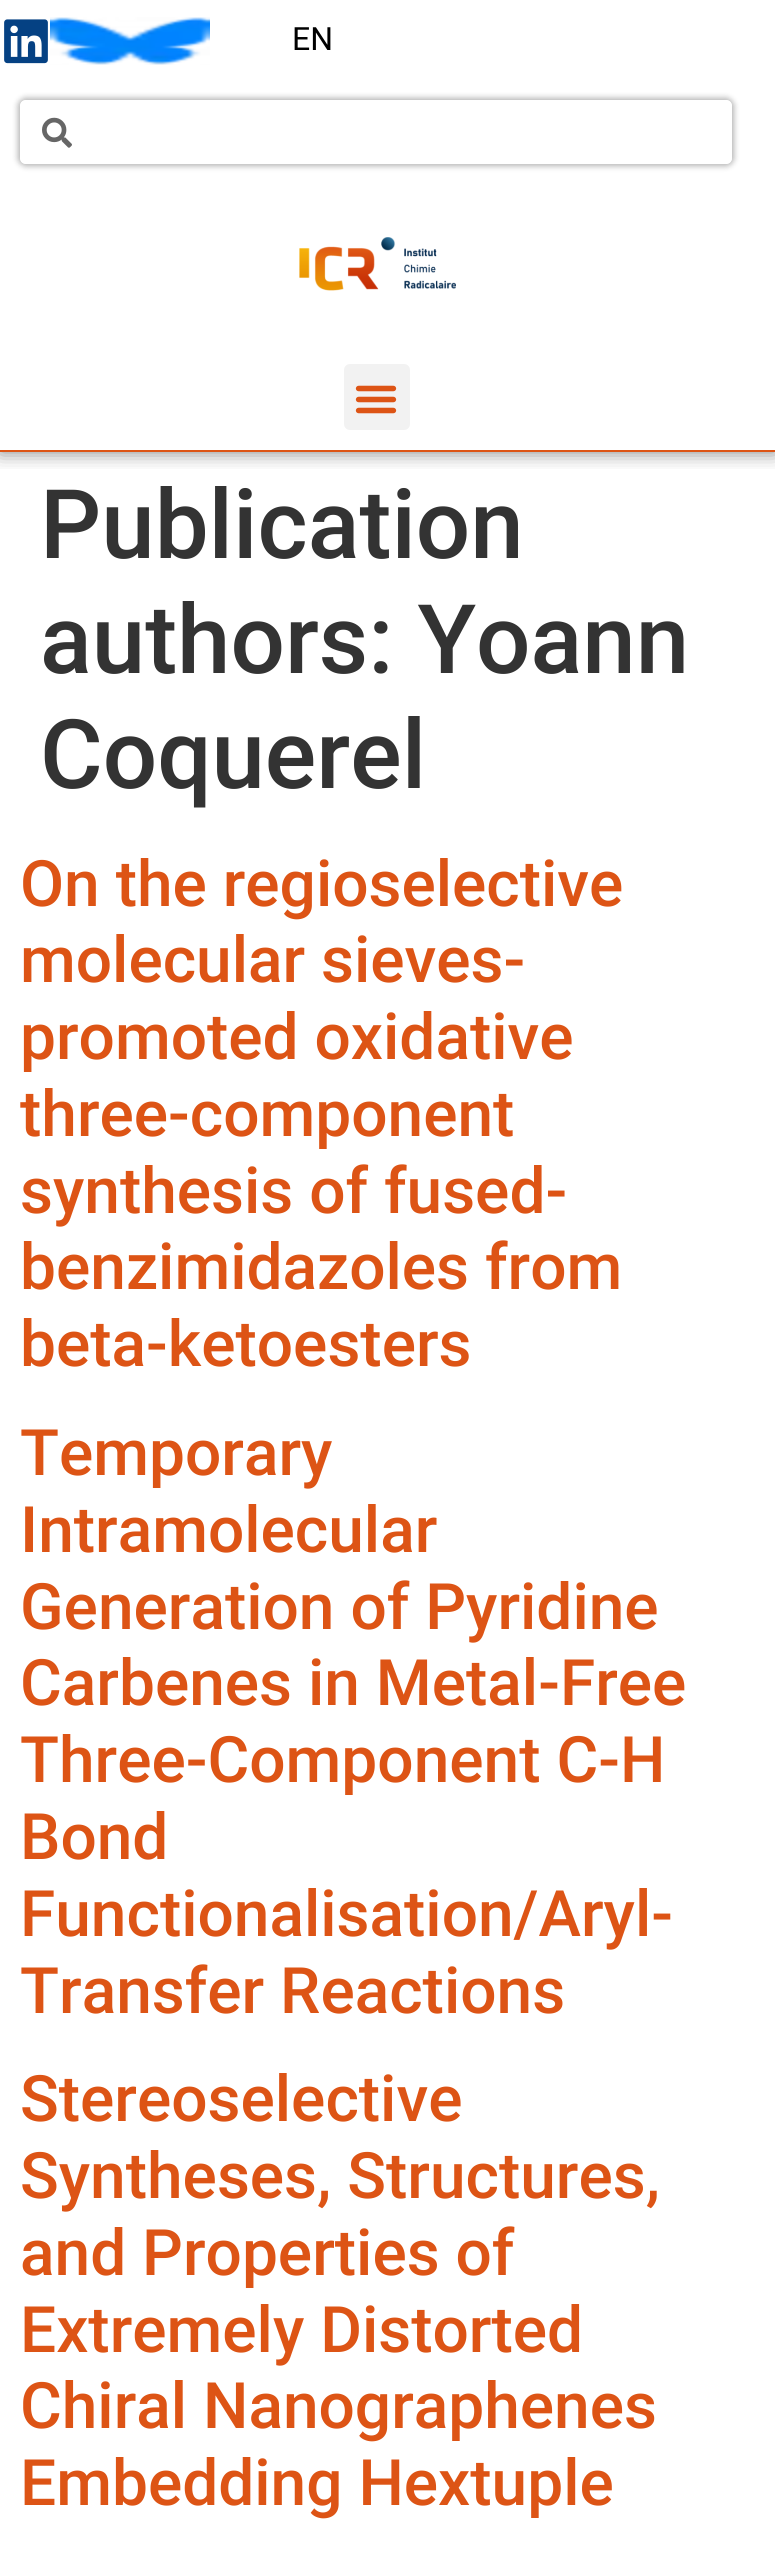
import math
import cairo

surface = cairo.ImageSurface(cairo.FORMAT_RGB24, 775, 2567)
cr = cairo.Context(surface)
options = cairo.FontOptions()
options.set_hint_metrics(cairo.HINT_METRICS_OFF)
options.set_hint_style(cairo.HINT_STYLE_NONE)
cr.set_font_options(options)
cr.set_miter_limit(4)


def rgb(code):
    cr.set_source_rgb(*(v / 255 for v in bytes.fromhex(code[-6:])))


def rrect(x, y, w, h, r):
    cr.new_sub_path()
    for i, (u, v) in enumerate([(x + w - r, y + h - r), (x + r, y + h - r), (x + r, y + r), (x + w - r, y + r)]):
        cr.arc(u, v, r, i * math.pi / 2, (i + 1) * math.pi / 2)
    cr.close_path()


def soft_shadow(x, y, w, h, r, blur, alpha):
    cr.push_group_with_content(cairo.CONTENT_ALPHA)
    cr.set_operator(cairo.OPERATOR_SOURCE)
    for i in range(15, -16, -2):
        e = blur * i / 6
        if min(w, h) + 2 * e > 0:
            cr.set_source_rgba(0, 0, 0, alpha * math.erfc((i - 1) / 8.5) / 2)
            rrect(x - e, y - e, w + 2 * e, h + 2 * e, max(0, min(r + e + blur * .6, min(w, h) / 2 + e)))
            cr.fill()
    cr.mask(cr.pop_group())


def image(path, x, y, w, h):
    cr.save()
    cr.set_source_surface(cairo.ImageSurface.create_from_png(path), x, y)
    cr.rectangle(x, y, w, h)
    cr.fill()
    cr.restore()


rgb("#ffffff")
cr.paint()
cr.save()
cr.rectangle(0, 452, 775, 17)
cr.clip()
rgb("#000000")
soft_shadow(0, 0, 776, 452, 0, 10, 0.5)
cr.restore()
rgb("#dd5415")
cr.rectangle(0, 450, 775, 2)
cr.fill()
image("img/1.png", 4, 19, 44, 45)
image("img/2.png", 50, 17, 160, 48)
cr.save()
cr.set_fill_rule(cairo.FILL_RULE_EVEN_ODD)
cr.new_path()
cr.move_to(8, 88)
cr.line_to(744, 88)
cr.line_to(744, 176)
cr.line_to(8, 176)
cr.close_path()
cr.move_to(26, 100)
cr.line_to(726, 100)
cr.curve_to(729.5, 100, 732, 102.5, 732, 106)
cr.line_to(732, 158)
cr.curve_to(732, 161.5, 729.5, 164, 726, 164)
cr.line_to(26, 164)
cr.curve_to(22.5, 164, 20, 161.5, 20, 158)
cr.line_to(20, 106)
cr.curve_to(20, 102.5, 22.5, 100, 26, 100)
cr.close_path()
cr.clip()
rgb("#000000")
soft_shadow(18, 98, 716, 68, 8, 3, 0.3)
cr.restore()
image("img/3.png", 42, 117, 30, 31)
image("img/4.png", 299, 237, 157, 54)
rgb("#f2f2f2")
rrect(344, 364, 66, 66, 6)
cr.fill()
image("img/5.png", 355, 385, 42, 29)
cr.select_font_face("Roboto")
cr.set_font_size(32)
rgb("#000000")
cr.move_to(292, 50)
cr.show_text("EN")
cr.select_font_face("Roboto Medium")
cr.set_font_size(96)
rgb("#333333")
for x, y, s in [
    (40, 558, "Publication"),
    (40, 673, "authors: Yoann"),
    (40, 788, "Coquerel"),
]:
    cr.move_to(x, y)
    cr.show_text(s)
cr.set_font_size(64)
rgb("#dd5415")
for x, y, s in [
    (20, 906, "On the regioselective"),
    (20, 982, "molecular sieves-"),
    (20, 1059, "promoted oxidative"),
    (20, 1136, "three-component"),
    (20, 1213, "synthesis of fused-"),
    (20, 1289, "benzimidazoles from"),
    (20, 1366, "beta-ketoesters"),
    (20, 1475, "Temporary"),
    (20, 1552, "Intramolecular"),
    (20, 1629, "Generation of Pyridine"),
    (20, 1705, "Carbenes in Metal-Free"),
    (20, 1782, "Three-Component C-H"),
    (20, 1859, "Bond"),
    (20, 1936, "Functionalisation/Aryl-"),
    (20, 2013, "Transfer Reactions"),
    (20, 2121, "Stereoselective"),
    (20, 2198, "Syntheses, Structures,"),
    (20, 2275, "and Properties of"),
    (20, 2352, "Extremely Distorted"),
    (20, 2428, "Chiral Nanographenes"),
    (20, 2505, "Embedding Hextuple"),
]:
    cr.move_to(x, y)
    cr.show_text(s)
surface.write_to_png("page.png")
